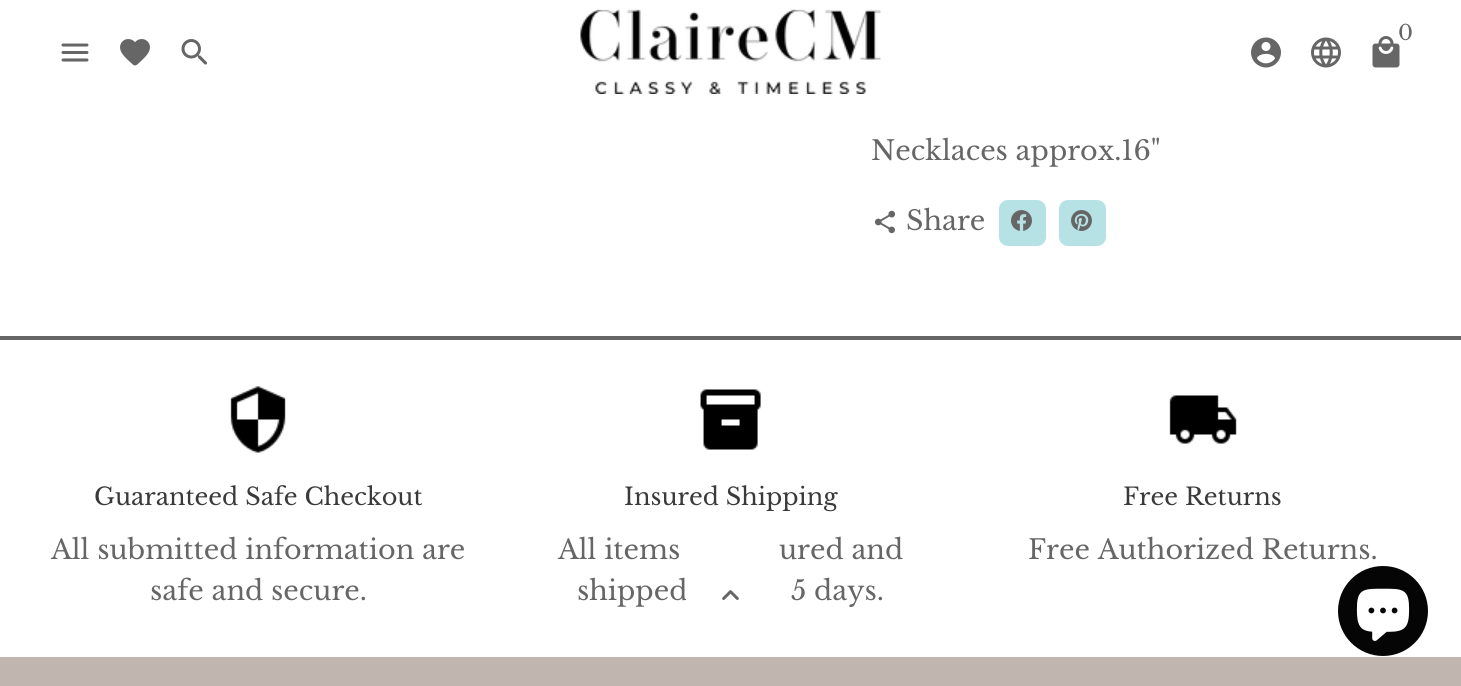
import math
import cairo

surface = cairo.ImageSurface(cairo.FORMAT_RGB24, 1461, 686)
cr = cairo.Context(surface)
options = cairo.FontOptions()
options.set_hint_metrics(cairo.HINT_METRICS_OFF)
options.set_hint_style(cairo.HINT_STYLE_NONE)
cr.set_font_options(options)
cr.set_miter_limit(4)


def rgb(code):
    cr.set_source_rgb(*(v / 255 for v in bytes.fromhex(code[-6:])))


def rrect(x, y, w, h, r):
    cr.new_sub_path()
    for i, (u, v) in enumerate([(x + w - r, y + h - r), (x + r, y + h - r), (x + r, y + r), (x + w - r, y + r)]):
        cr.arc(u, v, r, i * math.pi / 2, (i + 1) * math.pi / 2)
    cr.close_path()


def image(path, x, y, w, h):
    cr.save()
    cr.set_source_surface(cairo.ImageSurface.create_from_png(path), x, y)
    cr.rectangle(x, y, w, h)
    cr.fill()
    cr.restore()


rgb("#ffffff")
cr.paint()
image("img/1.png", 580, 9, 301, 85)
image("img/2.png", 1372, 36, 28, 32)
image("img/3.png", 1251, 37, 30, 31)
image("img/4.png", 1311, 37, 30, 31)
image("img/5.png", 61, 43, 28, 19)
image("img/6.png", 120, 39, 30, 27)
image("img/7.png", 181, 39, 26, 26)
image("img/8.png", 874, 210, 22, 24)
rgb("#b6e2e6")
rrect(1000, 201, 45, 44, 8)
cr.fill_preserve()
cr.stroke()
image("img/9.png", 1011, 210, 21, 21)
rrect(1060, 201, 45, 44, 8)
cr.fill_preserve()
cr.stroke()
image("img/10.png", 1071, 210, 21, 21)
rgb("#666666")
cr.rectangle(0, 336, 1461, 4)
cr.fill()
image("img/11.png", 230, 386, 56, 67)
image("img/12.png", 700, 389, 61, 61)
image("img/13.png", 1169, 395, 68, 49)
rgb("#c1b5b0")
cr.rectangle(0, 657, 1461, 29)
cr.fill()
rgb("#050505")
cr.arc(1383, 611, 45, 0, 2 * math.pi)
cr.fill()
image("img/15.png", 1356, 588, 54, 53)
cr.select_font_face("Libre Baskerville")
cr.set_font_size(21)
rgb("#666666")
cr.move_to(1398, 40)
cr.show_text("0")
cr.set_font_size(27)
cr.move_to(871, 160)
cr.show_text("Necklaces approx.16\"")
cr.move_to(906, 230)
cr.show_text("Share")
cr.set_font_size(24)
rgb("#3a3a3a")
cr.move_to(94, 505)
cr.show_text("Guaranteed Safe Checkout")
cr.set_font_size(27)
rgb("#666666")
cr.move_to(51, 559)
cr.show_text("All submitted information are")
cr.move_to(150, 600)
cr.show_text("safe and secure.")
cr.set_font_size(24)
rgb("#3a3a3a")
cr.move_to(624, 505)
cr.show_text("Insured Shipping")
cr.set_font_size(27)
rgb("#666666")
for x, y, s in [
    (558, 559, "All items"),
    (779, 559, "ured and"),
    (577, 600, "shipped"),
    (791, 600, "5 days."),
]:
    cr.move_to(x, y)
    cr.show_text(s)
cr.set_font_size(24)
rgb("#3a3a3a")
cr.move_to(1123, 505)
cr.show_text("Free Returns")
cr.set_font_size(27)
rgb("#666666")
cr.move_to(1028, 559)
cr.show_text("Free Authorized Returns.")
rgb("#ffffff")
rrect(686, 551, 91, 91, 9)
cr.fill()
image("img/14.png", 722, 590, 17, 10)
surface.write_to_png("page.png")
